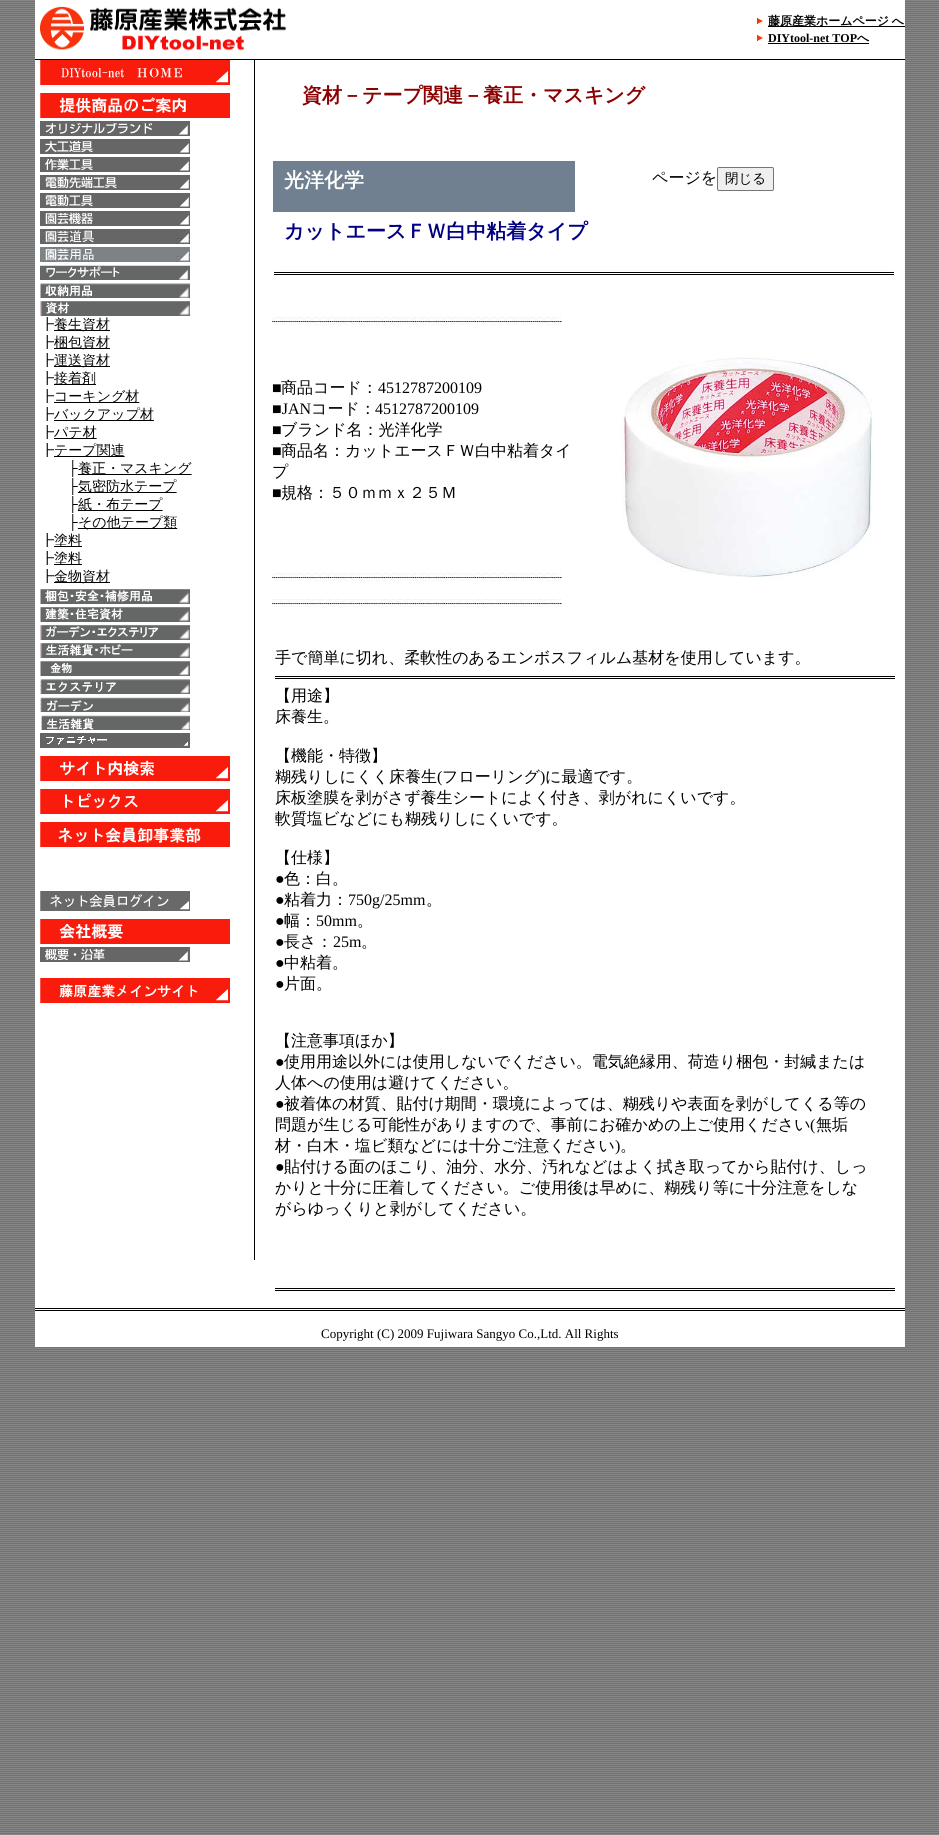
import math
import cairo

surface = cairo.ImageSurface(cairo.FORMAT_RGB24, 939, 1835)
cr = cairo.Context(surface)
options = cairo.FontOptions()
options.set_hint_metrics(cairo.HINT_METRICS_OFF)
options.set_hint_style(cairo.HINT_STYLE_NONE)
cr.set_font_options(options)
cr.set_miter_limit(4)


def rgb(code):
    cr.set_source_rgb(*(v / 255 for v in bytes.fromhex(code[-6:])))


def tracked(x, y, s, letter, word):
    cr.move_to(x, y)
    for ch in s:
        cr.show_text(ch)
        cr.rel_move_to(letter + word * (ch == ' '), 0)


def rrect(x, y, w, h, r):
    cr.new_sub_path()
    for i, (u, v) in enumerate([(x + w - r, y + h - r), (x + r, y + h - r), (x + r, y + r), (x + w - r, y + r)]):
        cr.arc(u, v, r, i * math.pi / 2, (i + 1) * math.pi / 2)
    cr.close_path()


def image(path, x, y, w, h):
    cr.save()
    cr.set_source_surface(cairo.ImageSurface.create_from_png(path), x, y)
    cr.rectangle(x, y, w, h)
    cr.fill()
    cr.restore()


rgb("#ffffff")
cr.paint()
image("img/1.png", 0, 0, 939, 1835)
rgb("#ffffff")
cr.rectangle(35, 0, 870, 1347)
cr.fill()
image("img/2.png", 40, 6, 246, 45)
image("img/3.png", 757, 18, 6, 6)
rgb("#000000")
cr.rectangle(768, 26, 137, 1)
cr.fill()
image("img/3.png", 757, 35, 6, 6)
for x, y, w, h, color in [
    (768, 43, 101, 1, "#000000"),
    (35, 59, 870, 1, "#000000"),
    (254, 60, 1, 1200, "#000000"),
]:
    rgb(color)
    cr.rectangle(x, y, w, h)
    cr.fill()
image("img/4.png", 40, 60, 190, 943)
rgb("#708090")
cr.rectangle(273, 161, 302, 51)
cr.fill()
rgb("#efefef")
rrect(717.5, 167.5, 56, 23, 1.5)
cr.fill_preserve()
rgb("#767676")
cr.set_line_width(1)
cr.stroke()
image("img/5.png", 274, 270, 620, 5)
image("img/6.png", 272, 317, 290, 8)
image("img/7.png", 620, 357, 254, 224)
image("img/6.png", 272, 573, 290, 8)
image("img/6.png", 272, 599, 290, 8)
image("img/5.png", 275, 674, 620, 5)
image("img/5.png", 275, 1286, 620, 5)
image("img/8.png", 35, 1306, 870, 5)
cr.select_font_face("WenQuanYi Zen Hei", cairo.FONT_SLANT_NORMAL, cairo.FONT_WEIGHT_BOLD)
cr.set_font_size(12)
rgb("#000000")
tracked(768, 25, "藤原産業ホームページ へ", 0, -1)
cr.select_font_face("Liberation Serif", cairo.FONT_SLANT_NORMAL, cairo.FONT_WEIGHT_BOLD)
cr.move_to(768, 42)
cr.show_text("DIYtool-net TOP")
cr.select_font_face("WenQuanYi Zen Hei", cairo.FONT_SLANT_NORMAL, cairo.FONT_WEIGHT_BOLD)
cr.move_to(857, 42)
cr.show_text("へ")
cr.set_font_size(20)
rgb("#8b0000")
cr.move_to(302, 102)
cr.show_text("資材－テープ関連－養正・マスキング")
rgb("#ffffff")
cr.move_to(284, 187)
cr.show_text("光洋化学")
cr.select_font_face("WenQuanYi Zen Hei Medium")
cr.set_font_size(16)
rgb("#000000")
cr.move_to(652, 183)
cr.show_text("ページを")
cr.set_font_size(13.5)
cr.move_to(725, 183)
cr.show_text("閉じる")
cr.select_font_face("WenQuanYi Zen Hei", cairo.FONT_SLANT_NORMAL, cairo.FONT_WEIGHT_BOLD)
cr.set_font_size(20)
rgb("#000080")
cr.move_to(284, 238)
cr.show_text("カットエースＦＷ白中粘着タイプ")
cr.select_font_face("Liberation Serif")
cr.set_font_size(16)
rgb("#000000")
cr.move_to(272, 393)
cr.show_text("■")
cr.select_font_face("WenQuanYi Zen Hei Medium")
cr.move_to(281, 393)
cr.show_text("商品コード：")
cr.select_font_face("Liberation Serif")
cr.move_to(378, 393)
cr.show_text("4512787200109")
cr.move_to(272, 414)
cr.show_text("■JAN")
cr.select_font_face("WenQuanYi Zen Hei Medium")
cr.move_to(311, 414)
cr.show_text("コード：")
cr.select_font_face("Liberation Serif")
cr.move_to(375, 414)
cr.show_text("4512787200109")
cr.move_to(272, 435)
cr.show_text("■")
cr.select_font_face("WenQuanYi Zen Hei Medium")
cr.move_to(281, 435)
cr.show_text("ブランド名：光洋化学")
cr.select_font_face("Liberation Serif")
cr.move_to(272, 456)
cr.show_text("■")
cr.select_font_face("WenQuanYi Zen Hei Medium")
cr.move_to(281, 456)
cr.show_text("商品名：カットエースＦＷ白中粘着タイ")
cr.move_to(272, 477)
cr.show_text("プ")
cr.select_font_face("Liberation Serif")
cr.move_to(272, 498)
cr.show_text("■")
cr.select_font_face("WenQuanYi Zen Hei Medium")
for x, y, s in [
    (281, 498, "規格：５０ｍｍｘ２５Ｍ"),
    (275, 663, "手で簡単に切れ、柔軟性のあるエンボスフィルム基材を使用しています。"),
    (275, 701, "【用途】"),
    (275, 722, "床養生。"),
    (275, 761, "【機能・特徴】"),
    (275, 782, "糊残りしにくく床養生"),
]:
    cr.move_to(x, y)
    cr.show_text(s)
cr.select_font_face("Liberation Serif")
cr.move_to(437, 782)
cr.show_text("(")
cr.select_font_face("WenQuanYi Zen Hei Medium")
cr.move_to(442, 782)
cr.show_text("フローリング")
cr.select_font_face("Liberation Serif")
cr.move_to(540, 782)
cr.show_text(")")
cr.select_font_face("WenQuanYi Zen Hei Medium")
for x, y, s in [
    (545, 782, "に最適です。"),
    (275, 803, "床板塗膜を剥がさず養生シートによく付き、剥がれにくいです。"),
    (275, 824, "軟質塩ビなどにも糊残りしにくいです。"),
    (275, 863, "【仕様】"),
]:
    cr.move_to(x, y)
    cr.show_text(s)
cr.select_font_face("Liberation Serif")
cr.move_to(275, 884)
cr.show_text("●")
cr.select_font_face("WenQuanYi Zen Hei Medium")
cr.move_to(284, 884)
cr.show_text("色：白。")
cr.select_font_face("Liberation Serif")
cr.move_to(275, 905)
cr.show_text("●")
cr.select_font_face("WenQuanYi Zen Hei Medium")
cr.move_to(284, 905)
cr.show_text("粘着力：")
cr.select_font_face("Liberation Serif")
cr.move_to(348, 905)
cr.show_text("750g/25mm")
cr.select_font_face("WenQuanYi Zen Hei Medium")
cr.move_to(426, 905)
cr.show_text("。")
cr.select_font_face("Liberation Serif")
cr.move_to(275, 926)
cr.show_text("●")
cr.select_font_face("WenQuanYi Zen Hei Medium")
cr.move_to(284, 926)
cr.show_text("幅：")
cr.select_font_face("Liberation Serif")
cr.move_to(316, 926)
cr.show_text("50mm")
cr.select_font_face("WenQuanYi Zen Hei Medium")
cr.move_to(357, 926)
cr.show_text("。")
cr.select_font_face("Liberation Serif")
cr.move_to(275, 947)
cr.show_text("●")
cr.select_font_face("WenQuanYi Zen Hei Medium")
cr.move_to(284, 947)
cr.show_text("長さ：")
cr.select_font_face("Liberation Serif")
cr.move_to(333, 947)
cr.show_text("25m")
cr.select_font_face("WenQuanYi Zen Hei Medium")
cr.move_to(361, 947)
cr.show_text("。")
cr.select_font_face("Liberation Serif")
cr.move_to(275, 968)
cr.show_text("●")
cr.select_font_face("WenQuanYi Zen Hei Medium")
cr.move_to(284, 968)
cr.show_text("中粘着。")
cr.select_font_face("Liberation Serif")
cr.move_to(275, 989)
cr.show_text("●")
cr.select_font_face("WenQuanYi Zen Hei Medium")
cr.move_to(284, 989)
cr.show_text("片面。")
cr.move_to(275, 1046)
cr.show_text("【注意事項ほか】")
cr.select_font_face("Liberation Serif")
cr.move_to(275, 1067)
cr.show_text("●")
cr.select_font_face("WenQuanYi Zen Hei Medium")
cr.move_to(284, 1067)
cr.show_text("使用用途以外には使用しないでください。電気絶縁用、荷造り梱包・封緘または")
cr.move_to(275, 1088)
cr.show_text("人体への使用は避けてください。")
cr.select_font_face("Liberation Serif")
cr.move_to(275, 1109)
cr.show_text("●")
cr.select_font_face("WenQuanYi Zen Hei Medium")
cr.move_to(284, 1109)
cr.show_text("被着体の材質、貼付け期間・環境によっては、糊残りや表面を剥がしてくる等の")
cr.move_to(275, 1130)
cr.show_text("問題が生じる可能性がありますので、事前にお確かめの上ご使用ください")
cr.select_font_face("Liberation Serif")
cr.move_to(810, 1130)
cr.show_text("(")
cr.select_font_face("WenQuanYi Zen Hei Medium")
cr.move_to(816, 1130)
cr.show_text("無垢")
cr.move_to(275, 1151)
cr.show_text("材・白木・塩ビ類などには十分ご注意ください")
cr.select_font_face("Liberation Serif")
cr.move_to(615, 1151)
cr.show_text(")")
cr.select_font_face("WenQuanYi Zen Hei Medium")
cr.move_to(620, 1151)
cr.show_text("。")
cr.select_font_face("Liberation Serif")
cr.move_to(275, 1172)
cr.show_text("●")
cr.select_font_face("WenQuanYi Zen Hei Medium")
for x, y, s in [
    (284, 1172, "貼付ける面のほこり、油分、水分、汚れなどはよく拭き取ってから貼付け、しっ"),
    (275, 1193, "かりと十分に圧着してください。ご使用後は早めに、糊残り等に十分注意をしな"),
    (275, 1214, "がらゆっくりと剥がしてください。"),
]:
    cr.move_to(x, y)
    cr.show_text(s)
cr.select_font_face("Liberation Serif")
cr.set_font_size(13)
cr.move_to(321, 1338)
cr.show_text("Copyright (C) 2009 Fujiwara Sangyo Co.,Ltd. All Rights")
surface.write_to_png("page.png")
